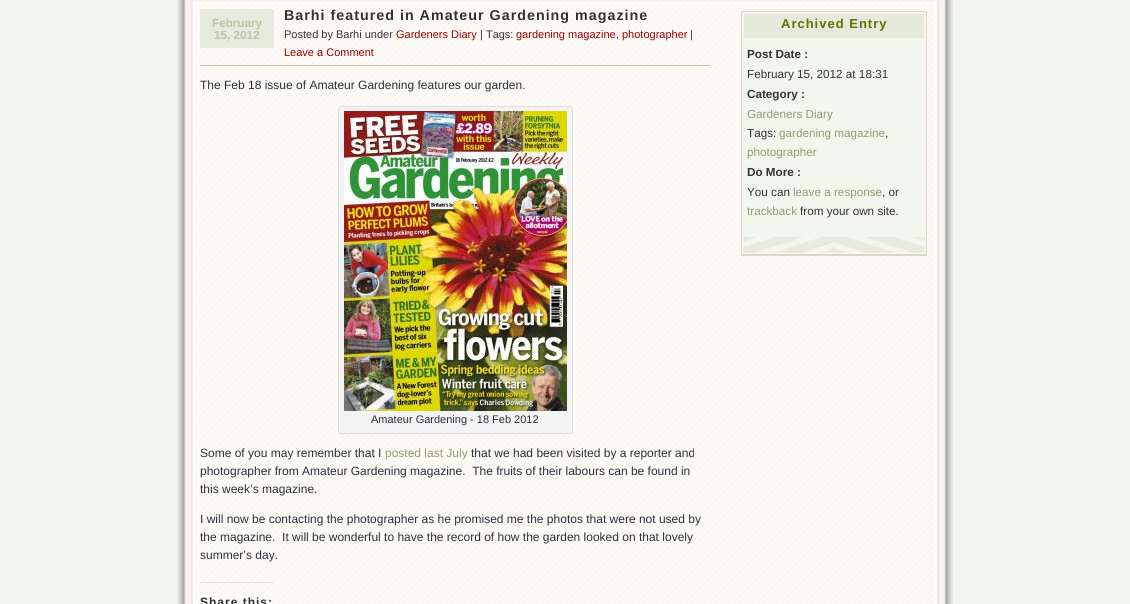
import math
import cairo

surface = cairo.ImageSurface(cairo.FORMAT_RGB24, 1130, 604)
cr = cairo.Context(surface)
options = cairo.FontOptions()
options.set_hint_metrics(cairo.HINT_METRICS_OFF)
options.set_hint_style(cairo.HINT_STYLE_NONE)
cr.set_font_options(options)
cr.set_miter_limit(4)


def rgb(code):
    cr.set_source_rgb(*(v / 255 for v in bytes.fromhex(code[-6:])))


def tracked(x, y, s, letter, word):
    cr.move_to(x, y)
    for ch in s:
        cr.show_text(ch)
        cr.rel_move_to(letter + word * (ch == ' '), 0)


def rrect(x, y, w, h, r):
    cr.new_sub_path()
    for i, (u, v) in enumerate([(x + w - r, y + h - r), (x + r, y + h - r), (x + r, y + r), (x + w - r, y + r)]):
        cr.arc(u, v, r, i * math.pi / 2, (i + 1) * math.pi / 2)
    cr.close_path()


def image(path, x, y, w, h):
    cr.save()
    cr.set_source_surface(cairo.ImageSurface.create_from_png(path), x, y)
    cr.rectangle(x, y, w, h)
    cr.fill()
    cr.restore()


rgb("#f3f6ed")
cr.paint()
image("img/1.png", 177, 0, 776, 604)
image("img/2.png", 185, 0, 760, 1)
image("img/3.png", 195, 1, 740, 603)
rgb("#e7ebde")
cr.rectangle(200, 9, 74, 39)
cr.fill()
rgb("#bbc4a3")
cr.rectangle(200, 65, 510, 1)
cr.fill()
rgb("#f3f3f3")
rrect(338.5, 106.5, 234, 327, 2.5)
cr.fill_preserve()
rgb("#dddddd")
cr.set_line_width(1)
cr.stroke()
image("img/4.png", 344, 111, 223, 300)
rgb("#dcdcde")
cr.rectangle(200, 582, 73, 1)
cr.fill()
image("img/5.png", 741, 11, 186, 27)
rgb("#f3f6ed")
cr.rectangle(742, 38, 184, 198)
cr.fill()
image("img/6.png", 742, 236, 184, 19)
for x, y, w, h, color in [
    (926, 38, 1, 218, "#e1d6c6"),
    (741, 255, 186, 1, "#e1d6c6"),
    (741, 38, 1, 218, "#e1d6c6"),
]:
    rgb(color)
    cr.rectangle(x, y, w, h)
    cr.fill()
cr.select_font_face("Liberation Sans", cairo.FONT_SLANT_NORMAL, cairo.FONT_WEIGHT_BOLD)
cr.set_font_size(11.7)
rgb("#bbc4a3")
cr.move_to(212, 27)
cr.show_text("February")
cr.move_to(214, 39)
cr.show_text("15, 2012")
cr.set_font_size(14.3)
rgb("#333333")
tracked(284, 20, "Barhi featured in Amateur Gardening magazine", 1, 0)
cr.select_font_face("Liberation Sans")
cr.set_font_size(11)
cr.move_to(284, 38)
cr.show_text("Posted by Barhi under")
rgb("#990000")
cr.move_to(396, 38)
cr.show_text("Gardeners Diary")
rgb("#333333")
cr.move_to(480, 38)
cr.show_text("| Tags:")
rgb("#990000")
cr.move_to(516, 38)
cr.show_text("gardening magazine")
rgb("#333333")
cr.move_to(616, 38)
cr.show_text(",")
rgb("#990000")
cr.move_to(622, 38)
cr.show_text("photographer")
rgb("#333333")
cr.move_to(690, 38)
cr.show_text("|")
rgb("#990000")
cr.move_to(284, 56)
cr.show_text("Leave a Comment")
cr.set_font_size(12)
rgb("#29303b")
cr.move_to(200, 89)
cr.show_text("The Feb 18 issue of Amateur Gardening features our garden.")
cr.set_font_size(11)
cr.move_to(371, 423)
cr.show_text("Amateur Gardening - 18 Feb 2012")
cr.set_font_size(12)
cr.move_to(200, 457)
cr.show_text("Some of you may remember that I")
rgb("#909d73")
cr.move_to(385, 457)
cr.show_text("posted last July")
rgb("#29303b")
for x, y, s in [
    (471, 457, "that we had been visited by a reporter and"),
    (200, 475, "photographer from Amateur Gardening magazine.  The fruits of their labours can be found in"),
    (200, 493, "this week’s magazine."),
    (200, 523, "I will now be contacting the photographer as he promised me the photos that were not used by"),
    (200, 541, "the magazine.  It will be wonderful to have the record of how the garden looked on that lovely"),
    (200, 559, "summer’s day."),
]:
    cr.move_to(x, y)
    cr.show_text(s)
cr.select_font_face("Liberation Sans", cairo.FONT_SLANT_NORMAL, cairo.FONT_WEIGHT_BOLD)
tracked(200, 606, "Share this:", 1, 0)
cr.set_font_size(13)
rgb("#676e04")
tracked(781, 28, "Archived Entry", 1, 0)
cr.set_font_size(11.7)
rgb("#333333")
cr.move_to(747, 58)
cr.show_text("Post Date :")
cr.select_font_face("Liberation Sans")
cr.move_to(747, 78)
cr.show_text("February 15, 2012 at 18:31")
cr.select_font_face("Liberation Sans", cairo.FONT_SLANT_NORMAL, cairo.FONT_WEIGHT_BOLD)
cr.move_to(747, 98)
cr.show_text("Category :")
cr.select_font_face("Liberation Sans")
rgb("#909d73")
cr.move_to(747, 118)
cr.show_text("Gardeners Diary")
rgb("#333333")
cr.move_to(747, 137)
cr.show_text("Tags:")
rgb("#909d73")
cr.move_to(779, 137)
cr.show_text("gardening magazine")
rgb("#333333")
cr.move_to(885, 137)
cr.show_text(",")
rgb("#909d73")
cr.move_to(747, 156)
cr.show_text("photographer")
cr.select_font_face("Liberation Sans", cairo.FONT_SLANT_NORMAL, cairo.FONT_WEIGHT_BOLD)
rgb("#333333")
cr.move_to(747, 176)
cr.show_text("Do More :")
cr.select_font_face("Liberation Sans")
cr.move_to(747, 196)
cr.show_text("You can")
rgb("#909d73")
cr.move_to(793, 196)
cr.show_text("leave a response")
rgb("#333333")
cr.move_to(882, 196)
cr.show_text(", or")
rgb("#909d73")
cr.move_to(747, 215)
cr.show_text("trackback")
rgb("#333333")
cr.move_to(800, 215)
cr.show_text("from your own site.")
surface.write_to_png("page.png")
